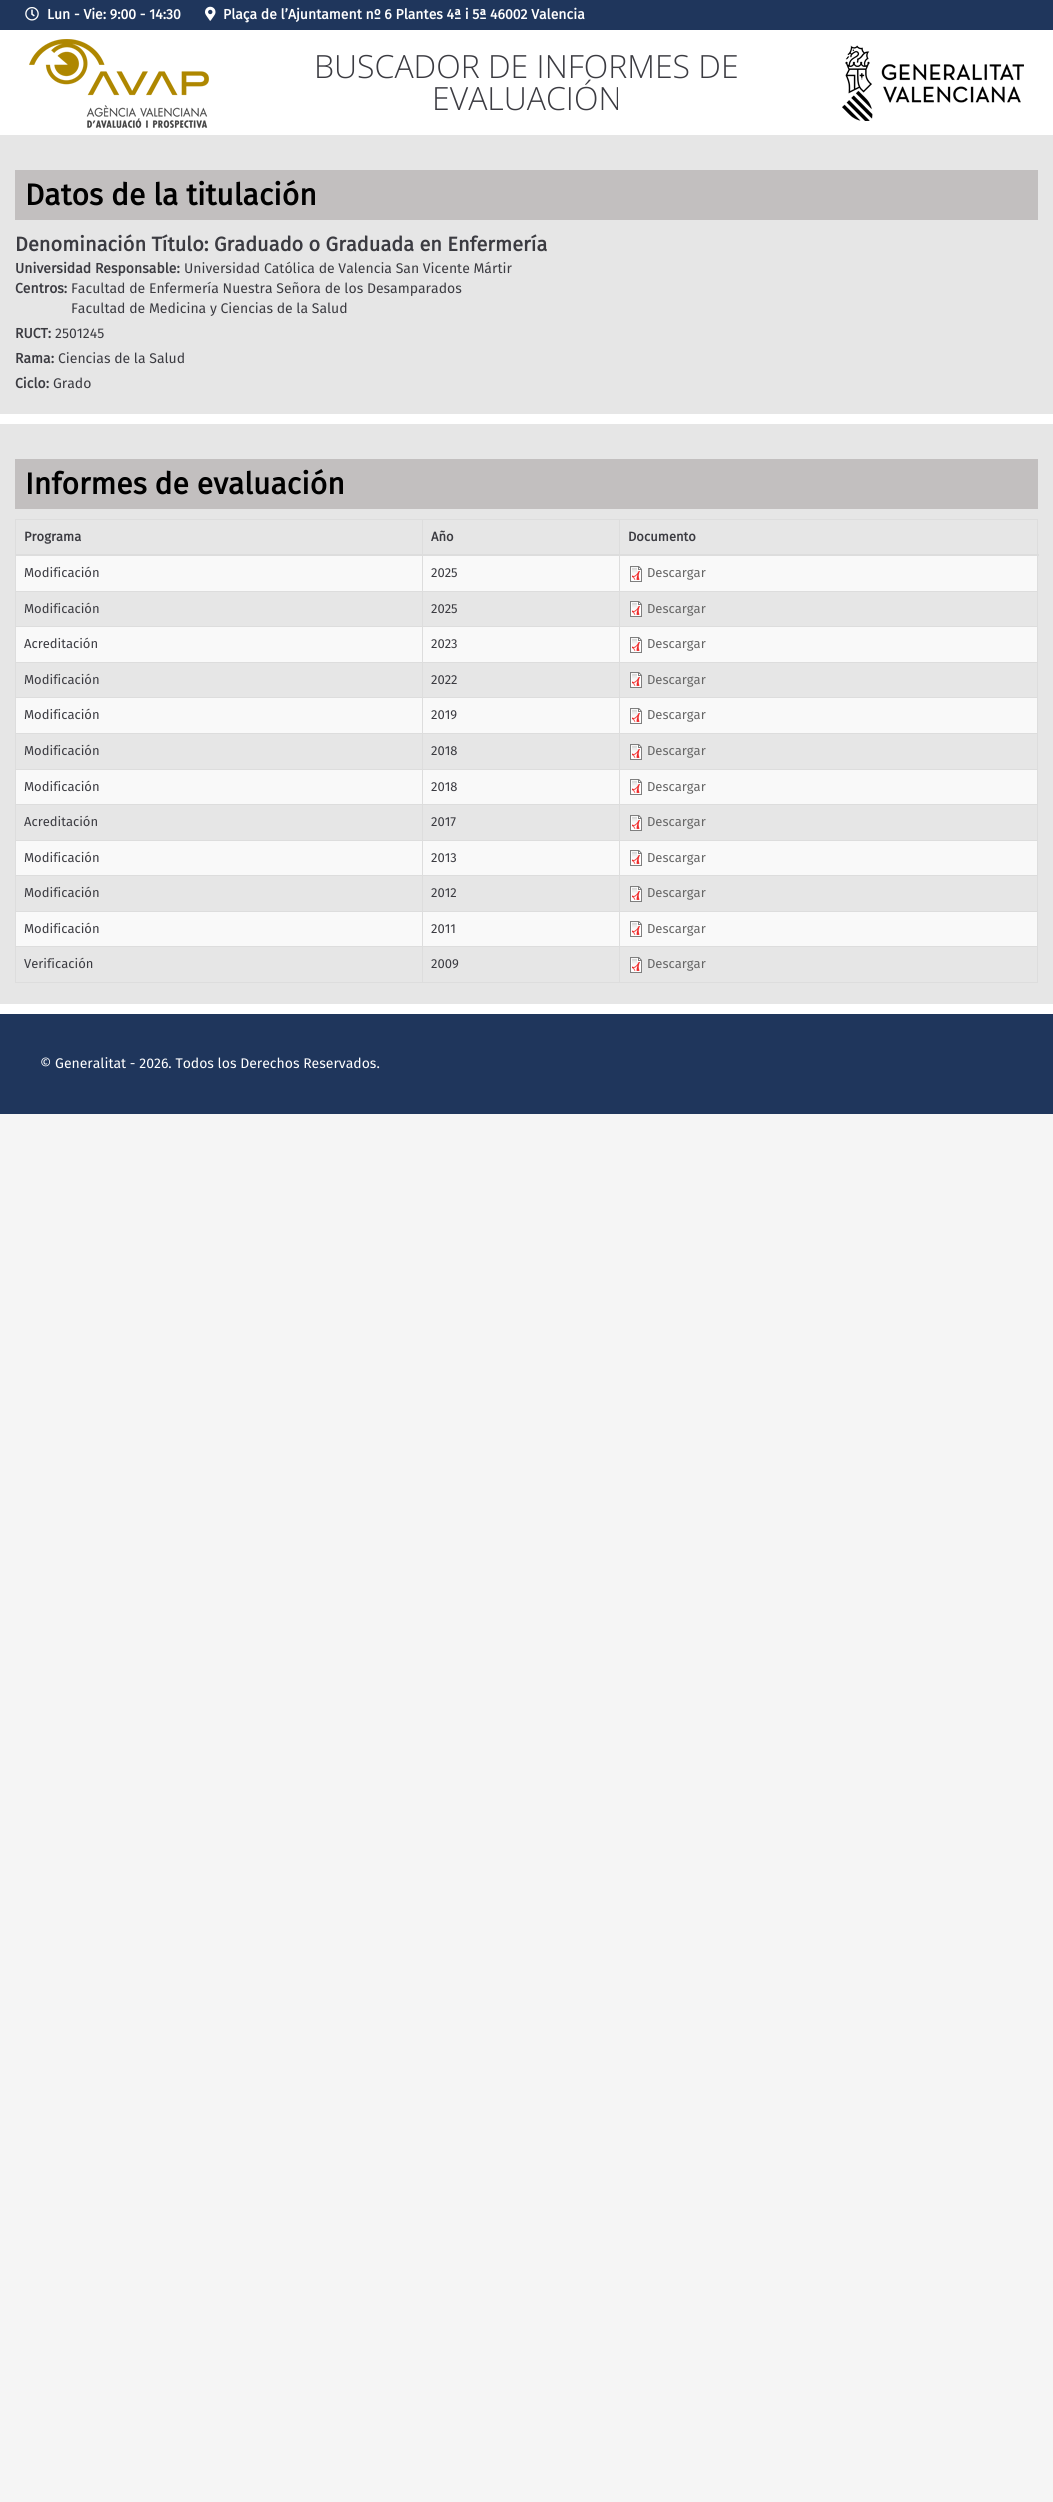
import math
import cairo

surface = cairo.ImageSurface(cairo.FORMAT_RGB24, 1053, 2502)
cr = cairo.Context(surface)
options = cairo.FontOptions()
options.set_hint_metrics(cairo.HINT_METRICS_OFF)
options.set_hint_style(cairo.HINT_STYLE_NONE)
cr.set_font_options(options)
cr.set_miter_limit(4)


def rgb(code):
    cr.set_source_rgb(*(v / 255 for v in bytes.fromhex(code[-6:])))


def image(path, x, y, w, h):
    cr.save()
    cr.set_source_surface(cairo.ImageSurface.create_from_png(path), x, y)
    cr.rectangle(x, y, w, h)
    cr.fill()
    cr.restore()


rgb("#f5f5f5")
cr.paint()
rgb("#ffffff")
cr.rectangle(0, 30, 1053, 984)
cr.fill()
rgb("#1f365c")
cr.rectangle(0, 0, 1053, 30)
cr.fill()
image("img/1.png", 25, 7, 14, 14)
image("img/2.png", 205, 6, 11, 15)
image("img/3.png", 29, 39, 180, 89)
image("img/4.png", 842, 45, 182, 76)
for x, y, w, h, color in [
    (0, 135, 1053, 279, "#e6e6e6"),
    (15, 170, 1023, 50, "#c2bfbf"),
    (0, 424, 1053, 580, "#e6e6e6"),
    (15, 459, 1023, 50, "#c2bfbf"),
    (15, 519, 1023, 1, "#dddddd"),
    (1037, 519, 1, 464, "#dddddd"),
    (15, 982, 1023, 1, "#dddddd"),
    (15, 519, 1, 464, "#dddddd"),
    (16, 556, 1021, 35, "#f9f9f9"),
    (619, 591, 419, 1, "#dddddd"),
    (619, 626, 419, 1, "#dddddd"),
    (16, 627, 1021, 35, "#f9f9f9"),
    (619, 662, 419, 1, "#dddddd"),
    (619, 697, 419, 1, "#dddddd"),
    (16, 698, 1021, 35, "#f9f9f9"),
    (619, 733, 419, 1, "#dddddd"),
    (619, 769, 419, 1, "#dddddd"),
    (16, 770, 1021, 34, "#f9f9f9"),
    (619, 804, 419, 1, "#dddddd"),
    (619, 840, 419, 1, "#dddddd"),
    (16, 841, 1021, 34, "#f9f9f9"),
    (619, 875, 419, 1, "#dddddd"),
    (619, 911, 419, 1, "#dddddd"),
    (16, 912, 1021, 34, "#f9f9f9"),
    (619, 946, 419, 1, "#dddddd"),
    (619, 946, 1, 37, "#dddddd"),
    (422, 946, 198, 1, "#dddddd"),
    (619, 911, 1, 36, "#dddddd"),
    (422, 911, 198, 1, "#dddddd"),
    (619, 875, 1, 37, "#dddddd"),
    (422, 875, 198, 1, "#dddddd"),
    (619, 840, 1, 36, "#dddddd"),
    (422, 840, 198, 1, "#dddddd"),
    (619, 804, 1, 37, "#dddddd"),
    (422, 804, 198, 1, "#dddddd"),
    (619, 769, 1, 36, "#dddddd"),
    (422, 769, 198, 1, "#dddddd"),
    (619, 733, 1, 37, "#dddddd"),
    (422, 733, 198, 1, "#dddddd"),
    (619, 697, 1, 37, "#dddddd"),
    (422, 697, 198, 1, "#dddddd"),
    (619, 662, 1, 36, "#dddddd"),
    (422, 662, 198, 1, "#dddddd"),
    (619, 626, 1, 37, "#dddddd"),
    (422, 626, 198, 1, "#dddddd"),
    (619, 591, 1, 36, "#dddddd"),
    (422, 591, 198, 1, "#dddddd"),
    (422, 946, 1, 37, "#dddddd"),
    (15, 946, 408, 1, "#dddddd"),
    (422, 911, 1, 36, "#dddddd"),
    (15, 911, 408, 1, "#dddddd"),
    (422, 875, 1, 37, "#dddddd"),
    (15, 875, 408, 1, "#dddddd"),
    (422, 840, 1, 36, "#dddddd"),
    (15, 840, 408, 1, "#dddddd"),
    (422, 804, 1, 37, "#dddddd"),
    (15, 804, 408, 1, "#dddddd"),
    (422, 769, 1, 36, "#dddddd"),
    (15, 769, 408, 1, "#dddddd"),
    (422, 733, 1, 37, "#dddddd"),
    (15, 733, 408, 1, "#dddddd"),
    (422, 697, 1, 37, "#dddddd"),
    (15, 697, 408, 1, "#dddddd"),
    (422, 662, 1, 36, "#dddddd"),
    (15, 662, 408, 1, "#dddddd"),
    (422, 626, 1, 37, "#dddddd"),
    (15, 626, 408, 1, "#dddddd"),
    (422, 591, 1, 36, "#dddddd"),
    (15, 591, 408, 1, "#dddddd"),
    (422, 519, 1, 73, "#dddddd"),
    (619, 519, 1, 73, "#dddddd"),
    (15, 554, 1024, 2, "#dddddd"),
]:
    rgb(color)
    cr.rectangle(x, y, w, h)
    cr.fill()
image("img/5.png", 630, 566, 12, 16)
image("img/6.png", 630, 601, 12, 16)
image("img/5.png", 630, 637, 12, 16)
image("img/6.png", 630, 672, 12, 16)
image("img/5.png", 630, 708, 12, 16)
image("img/6.png", 630, 744, 12, 16)
image("img/5.png", 630, 779, 12, 16)
image("img/6.png", 630, 815, 12, 16)
image("img/5.png", 630, 850, 12, 16)
image("img/6.png", 630, 886, 12, 16)
image("img/5.png", 630, 921, 12, 16)
image("img/6.png", 630, 957, 12, 16)
rgb("#1f365c")
cr.rectangle(0, 1014, 1053, 100)
cr.fill()
cr.select_font_face("Fira Sans", cairo.FONT_SLANT_NORMAL, cairo.FONT_WEIGHT_BOLD)
cr.set_font_size(14)
rgb("#ffffff")
cr.move_to(47, 19)
cr.show_text("Lun - Vie: 9:00 - 14:30")
cr.move_to(223, 19)
cr.show_text("Plaça de l’Ajuntament nº 6 Plantes 4ª i 5ª 46002 Valencia")
cr.select_font_face("Open Sans Light")
cr.set_font_size(32)
rgb("#3b3b41")
cr.move_to(314, 78)
cr.show_text("BUSCADOR DE INFORMES DE")
cr.move_to(432, 110)
cr.show_text("EVALUACIÓN")
cr.select_font_face("Fira Sans", cairo.FONT_SLANT_NORMAL, cairo.FONT_WEIGHT_BOLD)
cr.set_font_size(30)
rgb("#000000")
cr.move_to(25, 205)
cr.show_text("Datos de la titulación")
cr.set_font_size(20)
rgb("#3b3b41")
cr.move_to(15, 251)
cr.show_text("Denominación Título: Graduado o Graduada en Enfermería")
cr.set_font_size(14)
cr.move_to(15, 273)
cr.show_text("Universidad Responsable:")
cr.select_font_face("Fira Sans")
cr.move_to(184, 273)
cr.show_text("Universidad Católica de Valencia San Vicente Mártir")
cr.select_font_face("Fira Sans", cairo.FONT_SLANT_NORMAL, cairo.FONT_WEIGHT_BOLD)
cr.move_to(15, 293)
cr.show_text("Centros:")
cr.select_font_face("Fira Sans")
cr.move_to(71, 293)
cr.show_text("Facultad de Enfermería Nuestra Señora de los Desamparados")
cr.move_to(71, 313)
cr.show_text("Facultad de Medicina y Ciencias de la Salud")
cr.select_font_face("Fira Sans", cairo.FONT_SLANT_NORMAL, cairo.FONT_WEIGHT_BOLD)
cr.move_to(15, 338)
cr.show_text("RUCT:")
cr.select_font_face("Fira Sans")
cr.move_to(55, 338)
cr.show_text("2501245")
cr.select_font_face("Fira Sans", cairo.FONT_SLANT_NORMAL, cairo.FONT_WEIGHT_BOLD)
cr.move_to(15, 363)
cr.show_text("Rama:")
cr.select_font_face("Fira Sans")
cr.move_to(58, 363)
cr.show_text("Ciencias de la Salud")
cr.select_font_face("Fira Sans", cairo.FONT_SLANT_NORMAL, cairo.FONT_WEIGHT_BOLD)
cr.move_to(15, 388)
cr.show_text("Ciclo:")
cr.select_font_face("Fira Sans")
cr.move_to(53, 388)
cr.show_text("Grado")
cr.select_font_face("Fira Sans", cairo.FONT_SLANT_NORMAL, cairo.FONT_WEIGHT_BOLD)
cr.set_font_size(30)
rgb("#000000")
cr.move_to(25, 494)
cr.show_text("Informes de evaluación")
cr.set_font_size(13)
rgb("#3b3b41")
for x, y, s in [
    (24, 541, "Programa"),
    (431, 541, "Año"),
    (628, 541, "Documento"),
]:
    cr.move_to(x, y)
    cr.show_text(s)
cr.select_font_face("Fira Sans")
cr.move_to(24, 577)
cr.show_text("Modificación")
cr.move_to(431, 577)
cr.show_text("2025")
rgb("#666666")
cr.move_to(647, 577)
cr.show_text("Descargar")
rgb("#3b3b41")
cr.move_to(24, 613)
cr.show_text("Modificación")
cr.move_to(431, 613)
cr.show_text("2025")
rgb("#666666")
cr.move_to(647, 613)
cr.show_text("Descargar")
rgb("#3b3b41")
cr.move_to(24, 648)
cr.show_text("Acreditación")
cr.move_to(431, 648)
cr.show_text("2023")
rgb("#666666")
cr.move_to(647, 648)
cr.show_text("Descargar")
rgb("#3b3b41")
cr.move_to(24, 684)
cr.show_text("Modificación")
cr.move_to(431, 684)
cr.show_text("2022")
rgb("#666666")
cr.move_to(647, 684)
cr.show_text("Descargar")
rgb("#3b3b41")
cr.move_to(24, 719)
cr.show_text("Modificación")
cr.move_to(431, 719)
cr.show_text("2019")
rgb("#666666")
cr.move_to(647, 719)
cr.show_text("Descargar")
rgb("#3b3b41")
cr.move_to(24, 755)
cr.show_text("Modificación")
cr.move_to(431, 755)
cr.show_text("2018")
rgb("#666666")
cr.move_to(647, 755)
cr.show_text("Descargar")
rgb("#3b3b41")
cr.move_to(24, 791)
cr.show_text("Modificación")
cr.move_to(431, 791)
cr.show_text("2018")
rgb("#666666")
cr.move_to(647, 791)
cr.show_text("Descargar")
rgb("#3b3b41")
cr.move_to(24, 826)
cr.show_text("Acreditación")
cr.move_to(431, 826)
cr.show_text("2017")
rgb("#666666")
cr.move_to(647, 826)
cr.show_text("Descargar")
rgb("#3b3b41")
cr.move_to(24, 862)
cr.show_text("Modificación")
cr.move_to(431, 862)
cr.show_text("2013")
rgb("#666666")
cr.move_to(647, 862)
cr.show_text("Descargar")
rgb("#3b3b41")
cr.move_to(24, 897)
cr.show_text("Modificación")
cr.move_to(431, 897)
cr.show_text("2012")
rgb("#666666")
cr.move_to(647, 897)
cr.show_text("Descargar")
rgb("#3b3b41")
cr.move_to(24, 933)
cr.show_text("Modificación")
cr.move_to(431, 933)
cr.show_text("2011")
rgb("#666666")
cr.move_to(647, 933)
cr.show_text("Descargar")
rgb("#3b3b41")
cr.move_to(24, 968)
cr.show_text("Verificación")
cr.move_to(431, 968)
cr.show_text("2009")
rgb("#666666")
cr.move_to(647, 968)
cr.show_text("Descargar")
cr.set_font_size(14)
rgb("#ffffff")
cr.move_to(40, 1068)
cr.show_text("© Generalitat - 2026. Todos los Derechos Reservados.")
surface.write_to_png("page.png")
